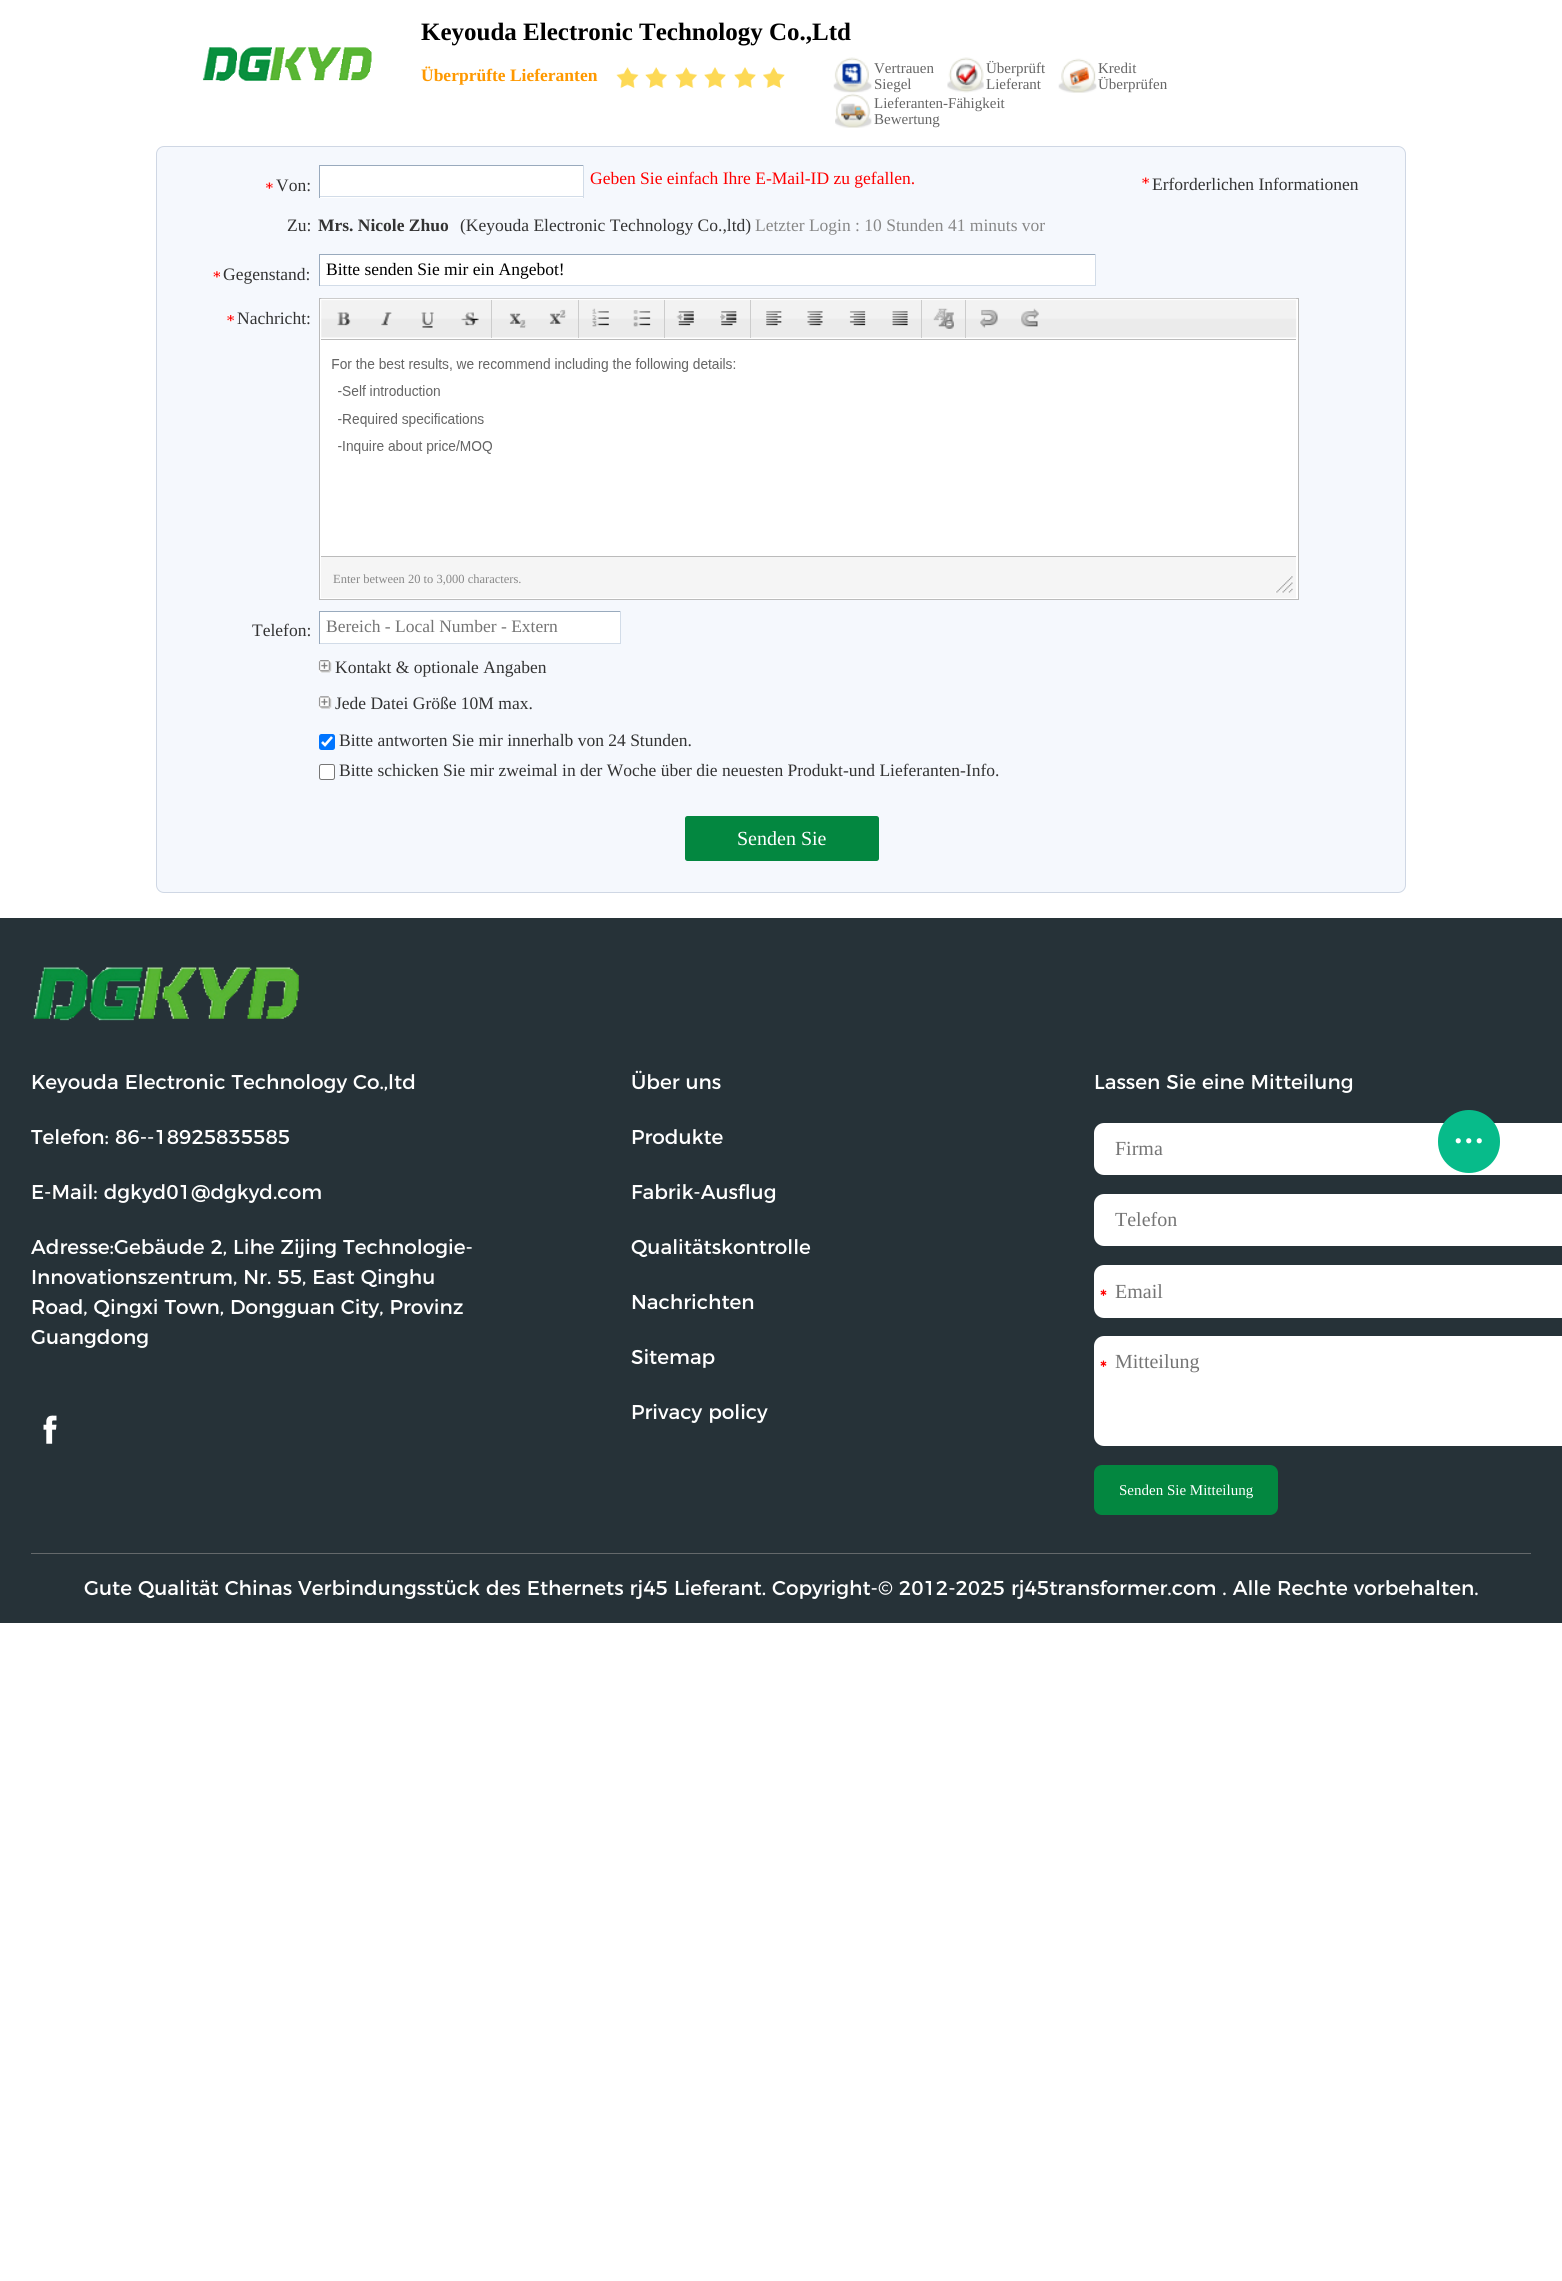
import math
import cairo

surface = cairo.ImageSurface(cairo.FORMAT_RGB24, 1562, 2281)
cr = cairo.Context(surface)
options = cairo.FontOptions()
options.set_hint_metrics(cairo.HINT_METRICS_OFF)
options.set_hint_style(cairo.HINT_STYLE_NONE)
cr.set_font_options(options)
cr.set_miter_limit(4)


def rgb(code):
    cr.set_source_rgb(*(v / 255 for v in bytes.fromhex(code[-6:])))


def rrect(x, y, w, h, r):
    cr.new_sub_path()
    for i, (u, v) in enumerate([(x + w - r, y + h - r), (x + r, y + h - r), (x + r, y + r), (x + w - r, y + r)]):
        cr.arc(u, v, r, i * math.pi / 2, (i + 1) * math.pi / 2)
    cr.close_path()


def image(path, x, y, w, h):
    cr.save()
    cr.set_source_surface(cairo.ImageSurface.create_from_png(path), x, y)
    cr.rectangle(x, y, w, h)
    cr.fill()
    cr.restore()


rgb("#ffffff")
cr.paint()
image("img/1.png", 202, 47, 170, 34)
image("img/2.png", 616, 67, 23, 21)
image("img/3.png", 645, 67, 23, 21)
image("img/3.png", 675, 67, 23, 21)
image("img/4.png", 704, 67, 22, 22)
image("img/4.png", 734, 67, 22, 22)
image("img/5.png", 763, 67, 22, 22)
image("img/6.png", 833, 57, 39, 36)
image("img/7.png", 947, 57, 37, 36)
image("img/8.png", 1058, 58, 39, 35)
image("img/9.png", 835, 92, 37, 36)
rgb("#f5f8fd")
rrect(156.5, 146.5, 1249, 746, 7.5)
cr.fill_preserve()
rgb("#cfd7e4")
cr.set_line_width(1)
cr.stroke()
image("img/10.png", 266, 182, 7, 7)
for x, y, w, h, color in [
    (320, 166, 263, 32, "#ffffff"),
    (319, 165, 265, 1, "#99aabd"),
    (583, 165, 1, 33, "#d2dce8"),
    (319, 196, 265, 1, "#d2dce8"),
    (319, 165, 1, 33, "#99aabd"),
]:
    rgb(color)
    cr.rectangle(x, y, w, h)
    cr.fill()
image("img/11.png", 1142, 177, 7, 7)
image("img/12.png", 213, 271, 7, 7)
for x, y, w, h, color in [
    (320, 255, 775, 30, "#ffffff"),
    (319, 254, 777, 1, "#99aabd"),
    (1095, 254, 1, 32, "#d2dce8"),
    (319, 285, 777, 1, "#d2dce8"),
    (319, 254, 1, 32, "#99aabd"),
]:
    rgb(color)
    cr.rectangle(x, y, w, h)
    cr.fill()
image("img/13.png", 227, 315, 7, 7)
rgb("#ffffff")
cr.rectangle(319.5, 298.5, 979, 301)
cr.fill_preserve()
rgb("#bbbbbb")
cr.stroke()
image("img/14.png", 321, 298, 976, 40)
cr.rectangle(321, 339, 975, 1)
cr.fill()
image("img/15.png", 337, 312, 14, 14)
image("img/16.png", 381, 312, 11, 14)
image("img/17.png", 421, 312, 13, 16)
image("img/18.png", 461, 312, 18, 14)
rgb("#cccccc")
cr.rectangle(491, 300, 1, 38)
cr.fill()
image("img/19.png", 509, 313, 18, 15)
image("img/20.png", 549, 309, 18, 15)
cr.rectangle(578, 300, 1, 38)
cr.fill()
image("img/21.png", 592, 308, 17, 19)
image("img/22.png", 633, 310, 18, 17)
cr.rectangle(664, 300, 1, 38)
cr.fill()
image("img/23.png", 676, 311, 18, 15)
image("img/24.png", 720, 311, 17, 15)
cr.rectangle(750, 300, 1, 38)
cr.fill()
image("img/25.png", 766, 311, 16, 15)
image("img/26.png", 807, 311, 16, 15)
image("img/27.png", 849, 311, 17, 15)
image("img/28.png", 892, 311, 16, 15)
cr.rectangle(921, 300, 1, 38)
cr.fill()
image("img/29.png", 933, 308, 21, 21)
cr.rectangle(965, 300, 1, 38)
cr.fill()
image("img/30.png", 980, 309, 18, 19)
image("img/31.png", 1021, 308, 18, 19)
image("img/32.png", 332, 358, 404, 96)
rgb("#f5f5f5")
cr.rectangle(321, 557, 975, 41)
cr.fill()
rgb("#bbbbbb")
cr.rectangle(321, 556, 975, 1)
cr.fill()
image("img/33.png", 1275, 576, 18, 17)
for x, y, w, h, color in [
    (320, 612, 300, 31, "#ffffff"),
    (319, 611, 302, 1, "#99aabd"),
    (620, 611, 1, 33, "#d2dce8"),
    (319, 643, 302, 1, "#d2dce8"),
    (319, 611, 1, 33, "#99aabd"),
]:
    rgb(color)
    cr.rectangle(x, y, w, h)
    cr.fill()
image("img/34.png", 318, 660, 14, 13)
image("img/35.png", 318, 696, 14, 13)
rgb("#0075ff")
rrect(319, 734, 16, 16, 2.5)
cr.fill()
cr.new_path()
cr.move_to(322, 742)
cr.line_to(325, 745)
cr.line_to(332, 737)
rgb("#ffffff")
cr.set_line_width(2.6)
cr.stroke()
rrect(319.5, 764.5, 15, 15, 2)
cr.fill_preserve()
rgb("#767676")
cr.set_line_width(1)
cr.stroke()
rgb("#038740")
rrect(685, 816, 194, 45, 2.5)
cr.fill()
rgb("#263238")
cr.rectangle(0, 918, 1562, 705)
cr.fill()
image("img/36.png", 33, 967, 266, 54)
image("img/37.png", 43, 1415, 14, 29)
rgb("#ffffff")
rrect(1094, 1123, 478, 52, 10)
cr.fill()
rrect(1094, 1194, 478, 52, 10)
cr.fill()
rrect(1094, 1265, 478, 53, 10)
cr.fill()
rrect(1094, 1336, 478, 110, 10)
cr.fill()
rgb("#038740")
rrect(1094, 1465, 184, 50, 8)
cr.fill()
rgb("#64696b")
cr.rectangle(31, 1553, 1500, 1)
cr.fill()
rgb("#07bb8a")
rrect(1438, 1110, 62, 63, 31)
cr.fill()
image("img/38.png", 1455, 1138, 27, 6)
cr.select_font_face("Liberation Serif", cairo.FONT_SLANT_NORMAL, cairo.FONT_WEIGHT_BOLD)
cr.set_font_size(25)
rgb("#000000")
cr.move_to(421, 40)
cr.show_text("Keyouda Electronic Technology Co.,Ltd")
cr.set_font_size(17.5)
rgb("#ff9900")
cr.move_to(421, 81)
cr.show_text("Überprüfte Lieferanten")
cr.select_font_face("Liberation Serif")
cr.set_font_size(15)
rgb("#666666")
for x, y, s in [
    (874, 73, "Vertrauen"),
    (874, 89, "Siegel"),
    (986, 73, "Überprüft"),
    (986, 89, "Lieferant"),
    (1098, 73, "Kredit"),
    (1098, 89, "Überprüfen"),
    (874, 108, "Lieferanten-Fähigkeit"),
    (874, 124, "Bewertung"),
]:
    cr.move_to(x, y)
    cr.show_text(s)
cr.set_font_size(17.5)
rgb("#333333")
cr.move_to(276, 191)
cr.show_text("Von:")
rgb("#ff0000")
cr.move_to(590, 184)
cr.show_text("Geben Sie einfach Ihre E-Mail-ID zu gefallen.")
rgb("#333333")
cr.move_to(1152, 190)
cr.show_text("Erforderlichen Informationen")
cr.move_to(287, 231)
cr.show_text("Zu:")
cr.select_font_face("Liberation Serif", cairo.FONT_SLANT_NORMAL, cairo.FONT_WEIGHT_BOLD)
cr.move_to(318, 231)
cr.show_text("Mrs. Nicole Zhuo")
cr.select_font_face("Liberation Serif")
cr.move_to(460, 231)
cr.show_text("(Keyouda Electronic Technology Co.,ltd)")
rgb("#888888")
cr.move_to(755, 231)
cr.show_text("Letzter Login : 10 Stunden 41 minuts vor")
rgb("#333333")
cr.move_to(223, 280)
cr.show_text("Gegenstand:")
rgb("#000000")
cr.move_to(326, 275)
cr.show_text("Bitte senden Sie mir ein Angebot!")
rgb("#333333")
cr.move_to(237, 324)
cr.show_text("Nachricht:")
cr.set_font_size(12.5)
rgb("#888888")
cr.move_to(333, 583)
cr.show_text("Enter between 20 to 3,000 characters.")
cr.set_font_size(17.5)
rgb("#333333")
cr.move_to(252, 636)
cr.show_text("Telefon:")
rgb("#757575")
cr.move_to(326, 632)
cr.show_text("Bereich - Local Number - Extern")
rgb("#333333")
for x, y, s in [
    (335, 673, "Kontakt & optionale Angaben"),
    (335, 709, "Jede Datei Größe 10M max."),
    (339, 746, "Bitte antworten Sie mir innerhalb von 24 Stunden."),
    (339, 776, "Bitte schicken Sie mir zweimal in der Woche über die neuesten Produkt-und Lieferanten-Info."),
]:
    cr.move_to(x, y)
    cr.show_text(s)
cr.set_font_size(20)
rgb("#ffffff")
cr.move_to(737, 845)
cr.show_text("Senden Sie")
cr.select_font_face("Montserrat")
for x, y, s in [
    (31, 1089, "Keyouda Electronic Technology Co.,ltd"),
    (31, 1144, "Telefon: 86--18925835585"),
    (31, 1199, "E-Mail: dgkyd01@dgkyd.com"),
    (31, 1254, "Adresse:Gebäude 2, Lihe Zijing Technologie-"),
    (31, 1284, "Innovationszentrum, Nr. 55, East Qinghu"),
    (31, 1314, "Road, Qingxi Town, Dongguan City, Provinz"),
    (31, 1344, "Guangdong"),
    (631, 1089, "Über uns"),
    (631, 1144, "Produkte"),
    (631, 1199, "Fabrik-Ausflug"),
    (631, 1254, "Qualitätskontrolle"),
    (631, 1309, "Nachrichten"),
    (631, 1364, "Sitemap"),
    (631, 1419, "Privacy policy"),
    (1094, 1089, "Lassen Sie eine Mitteilung"),
]:
    cr.move_to(x, y)
    cr.show_text(s)
cr.select_font_face("Liberation Serif")
rgb("#757575")
cr.move_to(1115, 1155)
cr.show_text("Firma")
cr.move_to(1115, 1226)
cr.show_text("Telefon")
cr.select_font_face("Montserrat")
rgb("#ff0000")
cr.move_to(1100, 1304)
cr.show_text("*")
cr.select_font_face("Liberation Serif")
rgb("#757575")
cr.move_to(1115, 1298)
cr.show_text("Email")
cr.select_font_face("Montserrat")
rgb("#ff0000")
cr.move_to(1100, 1375)
cr.show_text("*")
cr.select_font_face("Liberation Serif")
rgb("#757575")
cr.move_to(1115, 1368)
cr.show_text("Mitteilung")
cr.set_font_size(15)
rgb("#ffffff")
cr.move_to(1119, 1495)
cr.show_text("Senden Sie Mitteilung")
cr.select_font_face("Montserrat")
cr.set_font_size(20)
cr.move_to(84, 1595)
cr.show_text("Gute Qualität Chinas Verbindungsstück des Ethernets rj45 Lieferant. Copyright-© 2012-2025 rj45transformer.com . Alle Rechte vorbehalten.")
surface.write_to_png("page.png")
